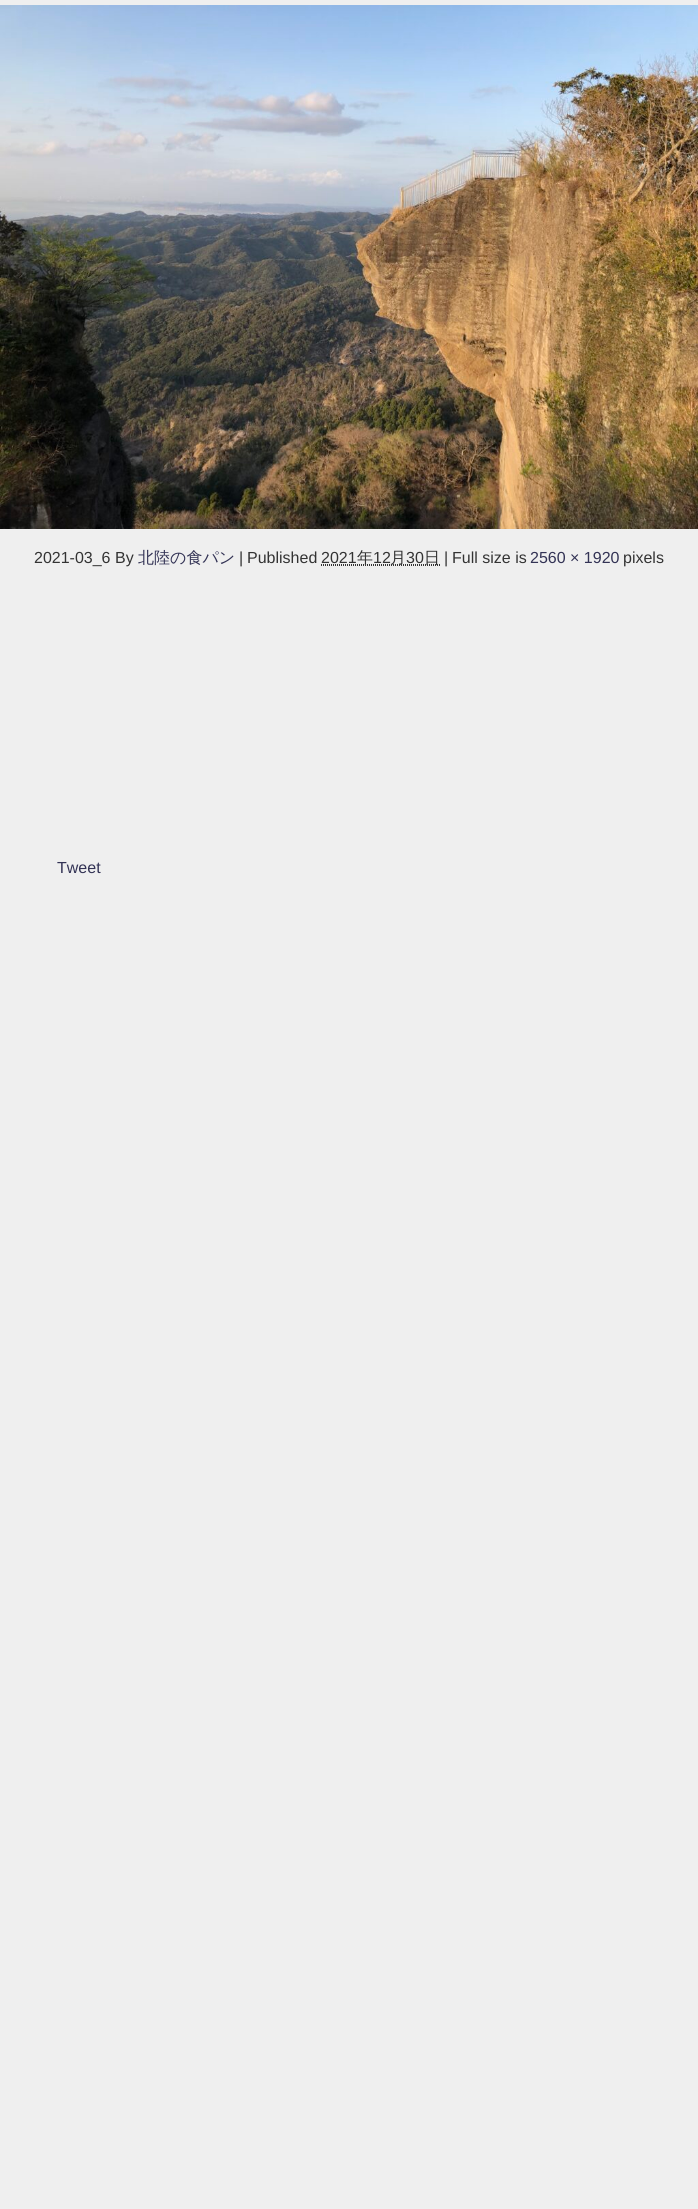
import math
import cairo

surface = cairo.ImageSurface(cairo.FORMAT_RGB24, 698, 2209)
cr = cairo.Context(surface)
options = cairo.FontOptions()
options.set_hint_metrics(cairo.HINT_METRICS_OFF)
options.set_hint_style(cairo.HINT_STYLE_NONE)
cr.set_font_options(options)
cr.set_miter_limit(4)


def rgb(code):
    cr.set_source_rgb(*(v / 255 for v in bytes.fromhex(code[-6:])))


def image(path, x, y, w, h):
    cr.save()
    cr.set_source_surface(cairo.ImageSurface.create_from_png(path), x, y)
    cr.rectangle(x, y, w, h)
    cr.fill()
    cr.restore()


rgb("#efefef")
cr.paint()
image("img/1.png", 0, 5, 698, 524)
cr.new_path()
cr.move_to(321, 565.5)
cr.line_to(440, 565.5)
rgb("#333333")
cr.set_line_width(1)
cr.set_dash([1, 1])
cr.stroke()
cr.new_path()
cr.move_to(321, 564.5)
cr.line_to(440.5, 564.5)
cr.stroke()
cr.select_font_face("Liberation Sans")
cr.set_font_size(16)
cr.move_to(34, 563)
cr.show_text("2021-03_6")
cr.move_to(115, 563)
cr.show_text("By")
cr.select_font_face("WenQuanYi Zen Hei Medium")
rgb("#333355")
cr.move_to(138, 563)
cr.show_text("北陸の食パン")
cr.select_font_face("Liberation Sans")
rgb("#333333")
for x, y, s in [
    (239, 563, "|"),
    (247, 563, "Published"),
    (321, 563, "2021"),
]:
    cr.move_to(x, y)
    cr.show_text(s)
cr.select_font_face("WenQuanYi Zen Hei Medium")
cr.move_to(357, 563)
cr.show_text("年")
cr.select_font_face("Liberation Sans")
cr.move_to(373, 563)
cr.show_text("12")
cr.select_font_face("WenQuanYi Zen Hei Medium")
cr.move_to(390, 563)
cr.show_text("月")
cr.select_font_face("Liberation Sans")
cr.move_to(406, 563)
cr.show_text("30")
cr.select_font_face("WenQuanYi Zen Hei Medium")
cr.move_to(424, 563)
cr.show_text("日")
cr.select_font_face("Liberation Sans")
cr.move_to(444, 563)
cr.show_text("|")
cr.move_to(452, 563)
cr.show_text("Full size is")
rgb("#333355")
cr.move_to(530, 563)
cr.show_text("2560 × 1920")
rgb("#333333")
cr.move_to(623, 563)
cr.show_text("pixels")
rgb("#333355")
cr.move_to(57, 873)
cr.show_text("Tweet")
surface.write_to_png("page.png")
